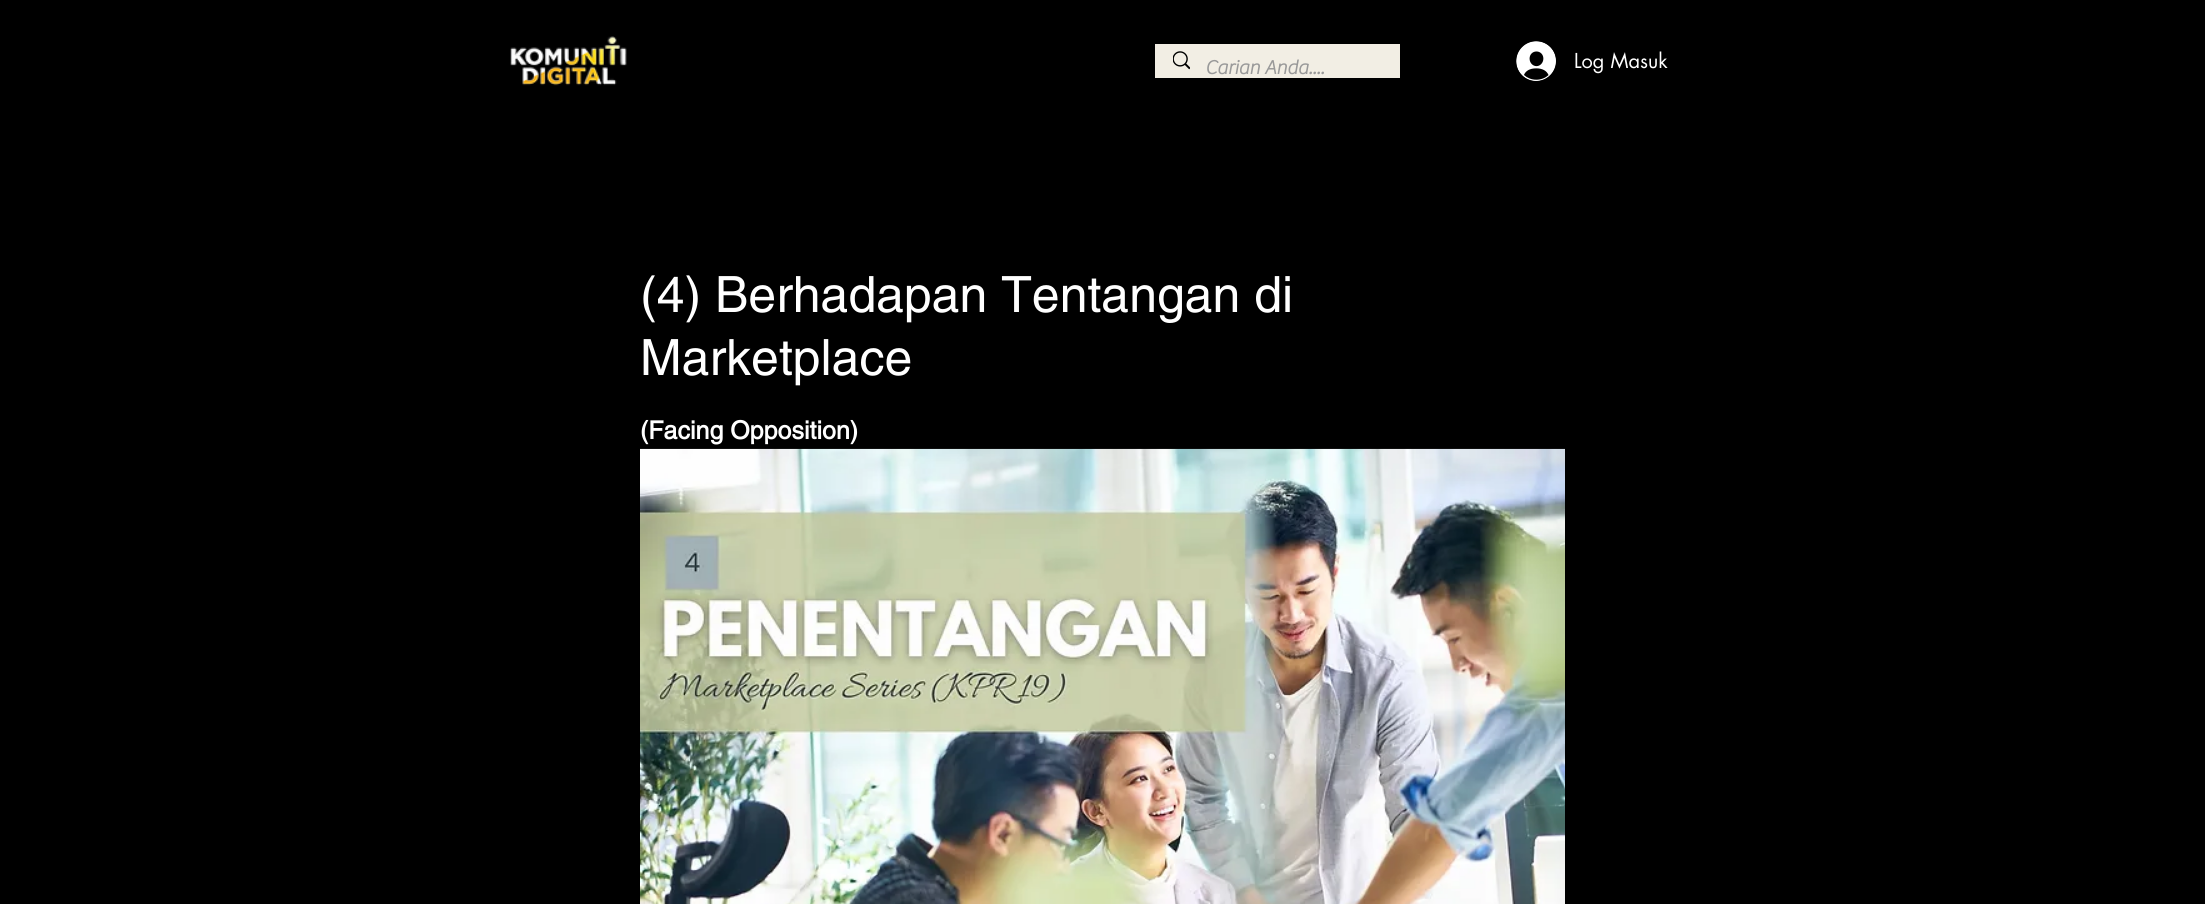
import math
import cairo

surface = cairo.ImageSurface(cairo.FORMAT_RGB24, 2205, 904)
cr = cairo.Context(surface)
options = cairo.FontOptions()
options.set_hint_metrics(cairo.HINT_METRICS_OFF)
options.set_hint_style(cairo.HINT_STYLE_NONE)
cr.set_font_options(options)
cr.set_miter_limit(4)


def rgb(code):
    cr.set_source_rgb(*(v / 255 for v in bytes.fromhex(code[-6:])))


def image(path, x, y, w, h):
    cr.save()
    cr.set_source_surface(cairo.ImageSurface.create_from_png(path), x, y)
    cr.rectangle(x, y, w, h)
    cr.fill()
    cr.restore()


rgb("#000000")
cr.paint()
image("img/1.png", 510, 36, 117, 50)
rgb("#f2eee4")
cr.rectangle(1155, 44, 245, 34)
cr.fill()
image("img/2.png", 1173, 51, 17, 19)
image("img/3.png", 1516, 41, 40, 40)
image("img/4.png", 640, 448, 925, 456)
cr.select_font_face("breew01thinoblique", cairo.FONT_SLANT_NORMAL, cairo.FONT_WEIGHT_BOLD)
cr.set_font_size(20)
rgb("#999999")
cr.move_to(1205, 74)
cr.show_text("Carian Anda....")
cr.select_font_face("futura")
rgb("#ffffff")
cr.move_to(1574, 68)
cr.show_text("Log Masuk")
cr.select_font_face("helvetica")
cr.set_font_size(50)
cr.move_to(640, 312)
cr.show_text("(4) Berhadapan Tentangan di")
cr.move_to(640, 375)
cr.show_text("Marketplace")
cr.select_font_face("helvetica", cairo.FONT_SLANT_NORMAL, cairo.FONT_WEIGHT_BOLD)
cr.set_font_size(25)
cr.move_to(640, 439)
cr.show_text("(Facing Opposition)")
surface.write_to_png("page.png")
